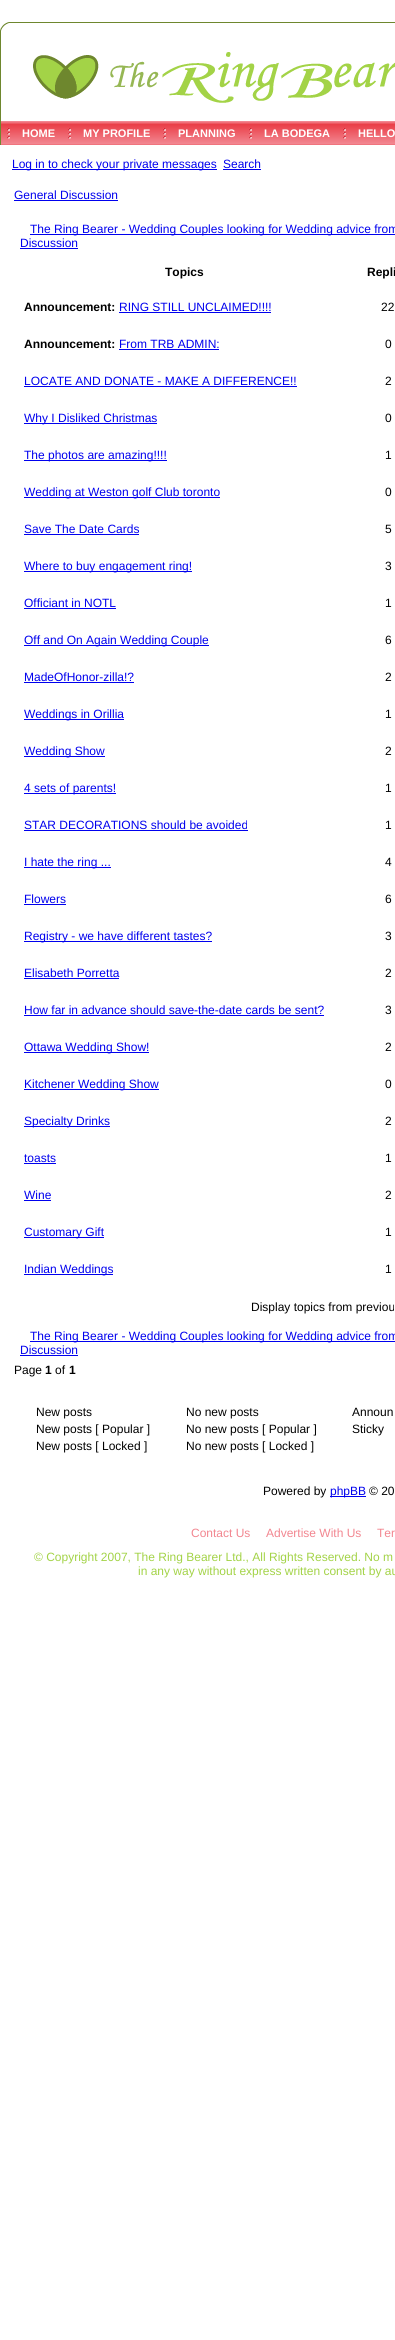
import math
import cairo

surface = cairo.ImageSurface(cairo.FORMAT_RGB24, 395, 2340)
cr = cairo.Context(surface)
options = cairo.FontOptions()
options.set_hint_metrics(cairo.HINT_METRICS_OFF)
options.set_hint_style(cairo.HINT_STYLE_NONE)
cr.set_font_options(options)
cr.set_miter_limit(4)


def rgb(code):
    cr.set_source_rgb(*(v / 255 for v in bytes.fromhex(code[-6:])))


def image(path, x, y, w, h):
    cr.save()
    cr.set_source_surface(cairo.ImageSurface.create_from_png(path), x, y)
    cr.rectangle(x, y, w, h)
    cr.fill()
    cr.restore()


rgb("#ffffff")
cr.paint()
image("img/1.png", 0, 22, 395, 81)
image("img/2.png", 33, 52, 362, 51)
rgb("#6e872e")
cr.rectangle(0, 103, 1, 42)
cr.fill()
image("img/3.png", 1, 121, 394, 24)
image("img/4.png", 7, 128, 3, 11)
image("img/4.png", 68, 128, 3, 11)
image("img/4.png", 163, 128, 3, 11)
image("img/4.png", 249, 128, 3, 11)
image("img/4.png", 343, 128, 3, 11)
for x, y, w, h, color in [
    (12, 169, 205, 1, "#0000ee"),
    (223, 169, 38, 1, "#0000ee"),
    (14, 200, 104, 1, "#0000ee"),
    (30, 234, 365, 1, "#0000ee"),
    (20, 248, 58, 1, "#0000ee"),
    (119, 312, 152, 1, "#0000ee"),
    (119, 349, 100, 1, "#0000ee"),
    (24, 386, 273, 1, "#0000ee"),
    (24, 423, 133, 1, "#0000ee"),
    (24, 460, 143, 1, "#0000ee"),
    (24, 497, 196, 1, "#0000ee"),
    (24, 534, 115, 1, "#0000ee"),
    (24, 571, 168, 1, "#0000ee"),
    (24, 608, 92, 1, "#0000ee"),
    (24, 645, 185, 1, "#0000ee"),
    (24, 682, 110, 1, "#0000ee"),
    (24, 719, 100, 1, "#0000ee"),
    (24, 756, 81, 1, "#0000ee"),
    (24, 793, 92, 1, "#0000ee"),
    (24, 830, 224, 1, "#0000ee"),
    (24, 867, 87, 1, "#0000ee"),
    (24, 904, 42, 1, "#0000ee"),
    (24, 941, 188, 1, "#0000ee"),
    (24, 978, 95, 1, "#0000ee"),
    (24, 1015, 300, 1, "#0000ee"),
    (24, 1052, 125, 1, "#0000ee"),
    (24, 1089, 135, 1, "#0000ee"),
    (24, 1126, 86, 1, "#0000ee"),
    (24, 1163, 32, 1, "#0000ee"),
    (24, 1200, 27, 1, "#0000ee"),
    (24, 1237, 80, 1, "#0000ee"),
    (24, 1274, 89, 1, "#0000ee"),
    (30, 1341, 365, 1, "#0000ee"),
    (20, 1355, 58, 1, "#0000ee"),
    (330, 1496, 36, 1, "#0000ee"),
]:
    rgb(color)
    cr.rectangle(x, y, w, h)
    cr.fill()
cr.select_font_face("Liberation Sans", cairo.FONT_SLANT_NORMAL, cairo.FONT_WEIGHT_BOLD)
cr.set_font_size(11)
rgb("#ffffff")
for x, y, s in [
    (22, 137, "HOME"),
    (83, 137, "MY PROFILE"),
    (178, 137, "PLANNING"),
    (264, 137, "LA BODEGA"),
    (358, 137, "HELLO"),
]:
    cr.move_to(x, y)
    cr.show_text(s)
cr.select_font_face("Liberation Sans")
cr.set_font_size(12)
rgb("#0000ee")
for x, y, s in [
    (12, 168, "Log in to check your private messages"),
    (223, 168, "Search"),
    (14, 199, "General Discussion"),
    (30, 233, "The Ring Bearer - Wedding Couples looking for Wedding advice from"),
    (20, 247, "Discussion"),
]:
    cr.move_to(x, y)
    cr.show_text(s)
cr.select_font_face("Liberation Sans", cairo.FONT_SLANT_NORMAL, cairo.FONT_WEIGHT_BOLD)
rgb("#000000")
for x, y, s in [
    (165, 276, "Topics"),
    (367, 276, "Repli"),
    (24, 311, "Announcement:"),
]:
    cr.move_to(x, y)
    cr.show_text(s)
cr.select_font_face("Liberation Sans")
rgb("#0000ee")
cr.move_to(119, 311)
cr.show_text("RING STILL UNCLAIMED!!!!")
rgb("#000000")
cr.move_to(381, 311)
cr.show_text("22")
cr.select_font_face("Liberation Sans", cairo.FONT_SLANT_NORMAL, cairo.FONT_WEIGHT_BOLD)
cr.move_to(24, 348)
cr.show_text("Announcement:")
cr.select_font_face("Liberation Sans")
rgb("#0000ee")
cr.move_to(119, 348)
cr.show_text("From TRB ADMIN:")
rgb("#000000")
cr.move_to(385, 348)
cr.show_text("0")
rgb("#0000ee")
cr.move_to(24, 385)
cr.show_text("LOCATE AND DONATE - MAKE A DIFFERENCE!!")
rgb("#000000")
cr.move_to(385, 385)
cr.show_text("2")
rgb("#0000ee")
cr.move_to(24, 422)
cr.show_text("Why I Disliked Christmas")
rgb("#000000")
cr.move_to(385, 422)
cr.show_text("0")
rgb("#0000ee")
cr.move_to(24, 459)
cr.show_text("The photos are amazing!!!!")
rgb("#000000")
cr.move_to(385, 459)
cr.show_text("1")
rgb("#0000ee")
cr.move_to(24, 496)
cr.show_text("Wedding at Weston golf Club toronto")
rgb("#000000")
cr.move_to(385, 496)
cr.show_text("0")
rgb("#0000ee")
cr.move_to(24, 533)
cr.show_text("Save The Date Cards")
rgb("#000000")
cr.move_to(385, 533)
cr.show_text("5")
rgb("#0000ee")
cr.move_to(24, 570)
cr.show_text("Where to buy engagement ring!")
rgb("#000000")
cr.move_to(385, 570)
cr.show_text("3")
rgb("#0000ee")
cr.move_to(24, 607)
cr.show_text("Officiant in NOTL")
rgb("#000000")
cr.move_to(385, 607)
cr.show_text("1")
rgb("#0000ee")
cr.move_to(24, 644)
cr.show_text("Off and On Again Wedding Couple")
rgb("#000000")
cr.move_to(385, 644)
cr.show_text("6")
rgb("#0000ee")
cr.move_to(24, 681)
cr.show_text("MadeOfHonor-zilla!?")
rgb("#000000")
cr.move_to(385, 681)
cr.show_text("2")
rgb("#0000ee")
cr.move_to(24, 718)
cr.show_text("Weddings in Orillia")
rgb("#000000")
cr.move_to(385, 718)
cr.show_text("1")
rgb("#0000ee")
cr.move_to(24, 755)
cr.show_text("Wedding Show")
rgb("#000000")
cr.move_to(385, 755)
cr.show_text("2")
rgb("#0000ee")
cr.move_to(24, 792)
cr.show_text("4 sets of parents!")
rgb("#000000")
cr.move_to(385, 792)
cr.show_text("1")
rgb("#0000ee")
cr.move_to(24, 829)
cr.show_text("STAR DECORATIONS should be avoided")
rgb("#000000")
cr.move_to(385, 829)
cr.show_text("1")
rgb("#0000ee")
cr.move_to(24, 866)
cr.show_text("I hate the ring ...")
rgb("#000000")
cr.move_to(385, 866)
cr.show_text("4")
rgb("#0000ee")
cr.move_to(24, 903)
cr.show_text("Flowers")
rgb("#000000")
cr.move_to(385, 903)
cr.show_text("6")
rgb("#0000ee")
cr.move_to(24, 940)
cr.show_text("Registry - we have different tastes?")
rgb("#000000")
cr.move_to(385, 940)
cr.show_text("3")
rgb("#0000ee")
cr.move_to(24, 977)
cr.show_text("Elisabeth Porretta")
rgb("#000000")
cr.move_to(385, 977)
cr.show_text("2")
rgb("#0000ee")
cr.move_to(24, 1014)
cr.show_text("How far in advance should save-the-date cards be sent?")
rgb("#000000")
cr.move_to(385, 1014)
cr.show_text("3")
rgb("#0000ee")
cr.move_to(24, 1051)
cr.show_text("Ottawa Wedding Show!")
rgb("#000000")
cr.move_to(385, 1051)
cr.show_text("2")
rgb("#0000ee")
cr.move_to(24, 1088)
cr.show_text("Kitchener Wedding Show")
rgb("#000000")
cr.move_to(385, 1088)
cr.show_text("0")
rgb("#0000ee")
cr.move_to(24, 1125)
cr.show_text("Specialty Drinks")
rgb("#000000")
cr.move_to(385, 1125)
cr.show_text("2")
rgb("#0000ee")
cr.move_to(24, 1162)
cr.show_text("toasts")
rgb("#000000")
cr.move_to(385, 1162)
cr.show_text("1")
rgb("#0000ee")
cr.move_to(24, 1199)
cr.show_text("Wine")
rgb("#000000")
cr.move_to(385, 1199)
cr.show_text("2")
rgb("#0000ee")
cr.move_to(24, 1236)
cr.show_text("Customary Gift")
rgb("#000000")
cr.move_to(385, 1236)
cr.show_text("1")
rgb("#0000ee")
cr.move_to(24, 1273)
cr.show_text("Indian Weddings")
rgb("#000000")
cr.move_to(385, 1273)
cr.show_text("1")
cr.move_to(251, 1311)
cr.show_text("Display topics from previou")
rgb("#0000ee")
cr.move_to(30, 1340)
cr.show_text("The Ring Bearer - Wedding Couples looking for Wedding advice from")
cr.move_to(20, 1354)
cr.show_text("Discussion")
rgb("#000000")
cr.move_to(14, 1374)
cr.show_text("Page")
cr.select_font_face("Liberation Sans", cairo.FONT_SLANT_NORMAL, cairo.FONT_WEIGHT_BOLD)
cr.move_to(45, 1374)
cr.show_text("1")
cr.select_font_face("Liberation Sans")
cr.move_to(55, 1374)
cr.show_text("of")
cr.select_font_face("Liberation Sans", cairo.FONT_SLANT_NORMAL, cairo.FONT_WEIGHT_BOLD)
cr.move_to(69, 1374)
cr.show_text("1")
cr.select_font_face("Liberation Sans")
for x, y, s in [
    (36, 1416, "New posts"),
    (186, 1416, "No new posts"),
    (352, 1416, "Announ"),
    (36, 1433, "New posts [ Popular ]"),
    (186, 1433, "No new posts [ Popular ]"),
    (352, 1433, "Sticky"),
    (36, 1450, "New posts [ Locked ]"),
    (186, 1450, "No new posts [ Locked ]"),
    (263, 1495, "Powered by"),
]:
    cr.move_to(x, y)
    cr.show_text(s)
rgb("#0000ee")
cr.move_to(330, 1495)
cr.show_text("phpBB")
rgb("#000000")
cr.move_to(369, 1495)
cr.show_text("© 20")
rgb("#f28690")
for x, y, s in [
    (191, 1537, "Contact Us"),
    (266, 1537, "Advertise With Us"),
    (377, 1537, "Ter"),
]:
    cr.move_to(x, y)
    cr.show_text(s)
rgb("#a3d347")
cr.move_to(34, 1561)
cr.show_text("© Copyright 2007, The Ring Bearer Ltd., All Rights Reserved. No m")
cr.move_to(138, 1575)
cr.show_text("in any way without express written consent by au")
surface.write_to_png("page.png")
